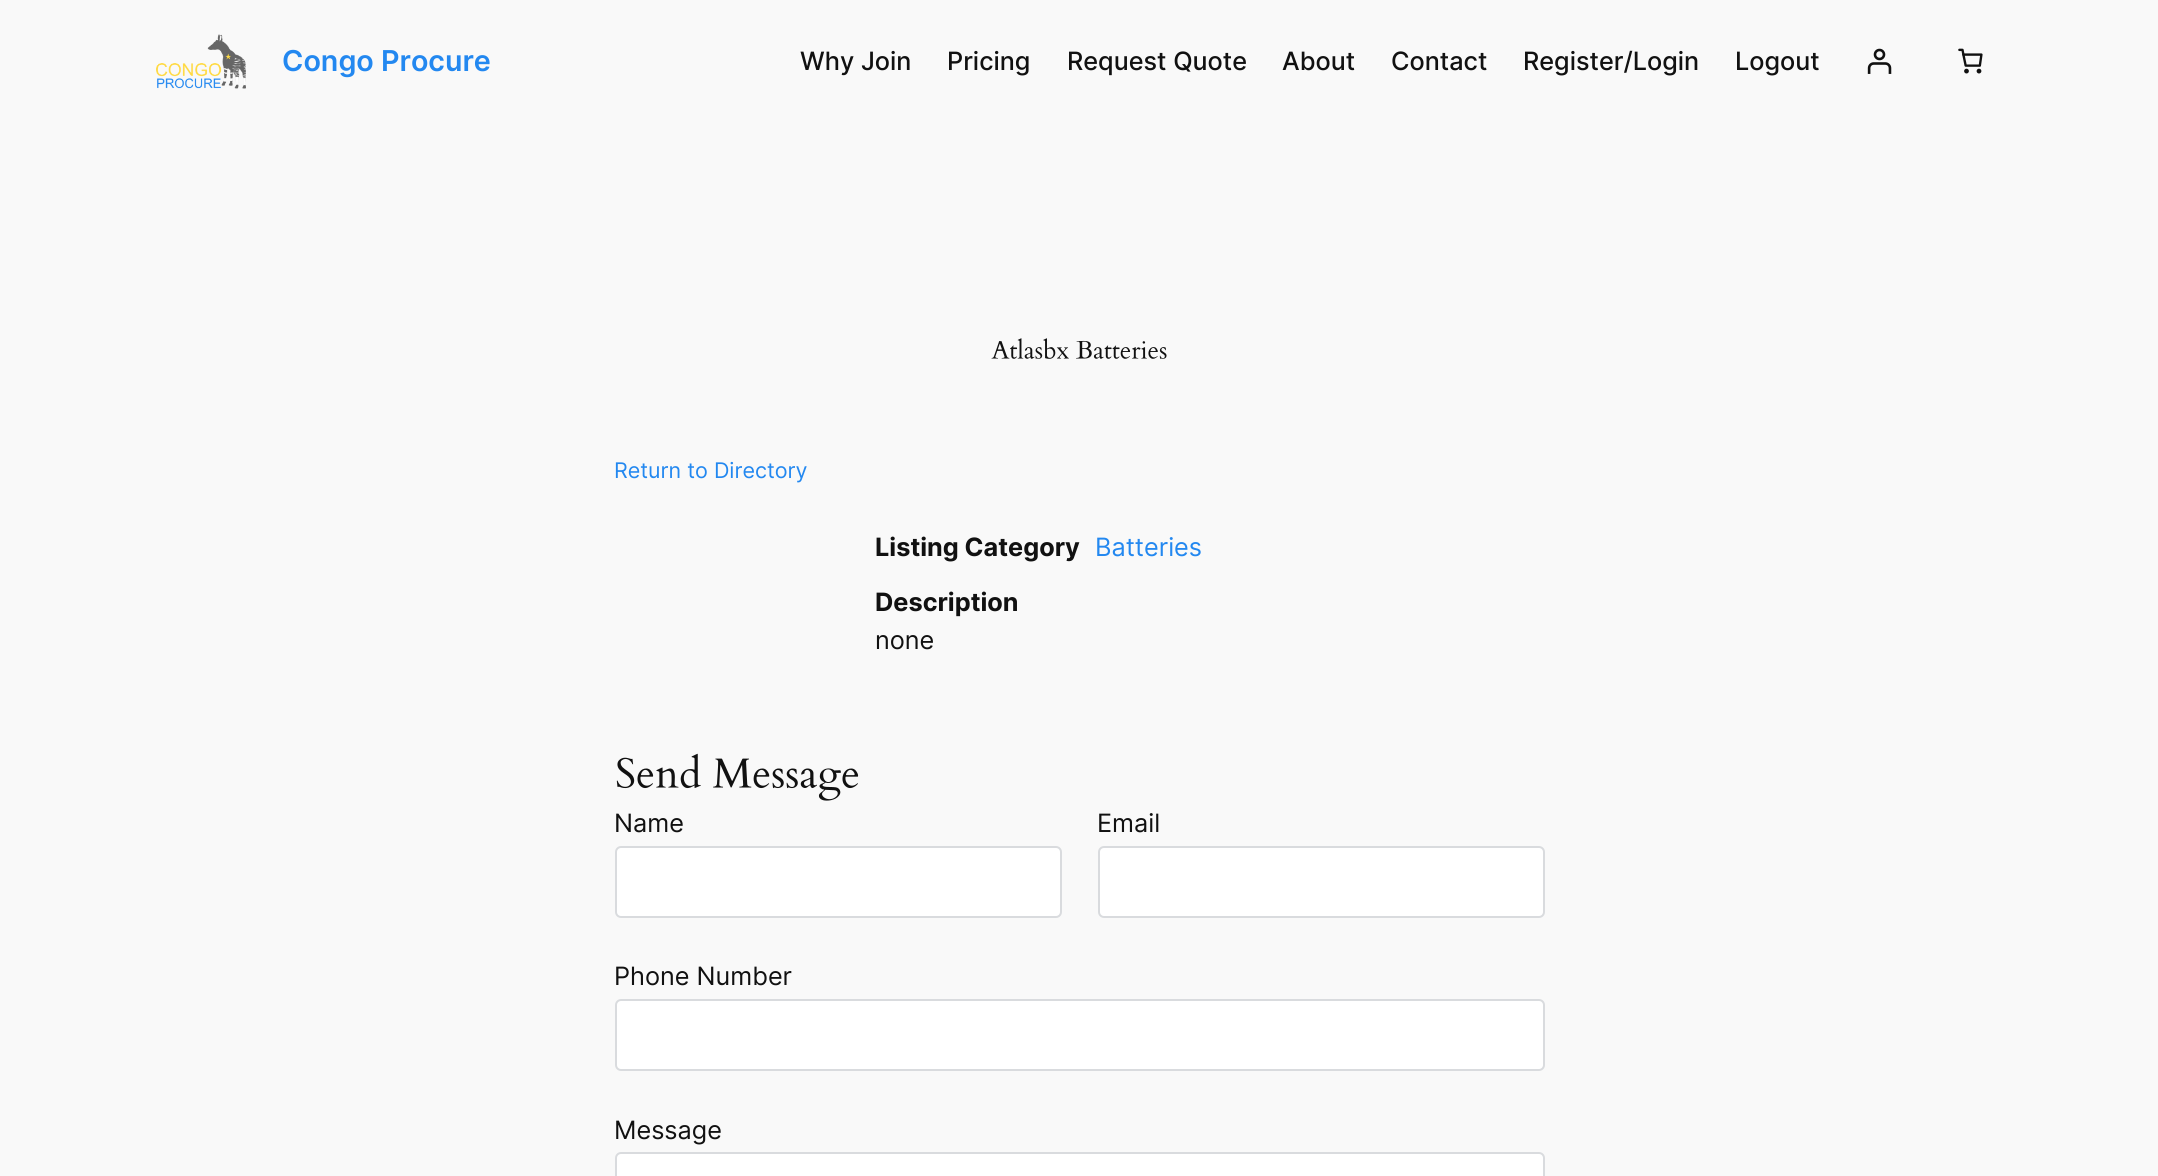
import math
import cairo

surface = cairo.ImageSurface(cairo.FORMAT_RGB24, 2158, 1176)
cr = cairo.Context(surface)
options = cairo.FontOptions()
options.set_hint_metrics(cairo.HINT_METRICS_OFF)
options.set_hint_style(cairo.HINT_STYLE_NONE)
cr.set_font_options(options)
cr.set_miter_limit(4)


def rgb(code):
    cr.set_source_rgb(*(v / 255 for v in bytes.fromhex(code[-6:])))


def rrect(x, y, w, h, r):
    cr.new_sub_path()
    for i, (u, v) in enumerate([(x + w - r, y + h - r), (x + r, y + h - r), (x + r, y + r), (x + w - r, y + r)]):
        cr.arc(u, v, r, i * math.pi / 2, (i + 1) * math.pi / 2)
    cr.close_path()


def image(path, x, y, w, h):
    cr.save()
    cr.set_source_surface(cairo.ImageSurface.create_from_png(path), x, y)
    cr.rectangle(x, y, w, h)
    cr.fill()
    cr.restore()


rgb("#f9f9f9")
cr.paint()
image("img/1.png", 156, 34, 90, 55)
image("img/2.png", 1867, 48, 25, 26)
image("img/3.png", 1958, 48, 25, 26)
image("img/4.png", 991, 338, 176, 21)
image("img/5.png", 616, 753, 243, 48)
rgb("#ffffff")
rrect(616, 847, 445, 70, 5)
cr.fill_preserve()
rgb("#d9dbde")
cr.stroke()
rgb("#ffffff")
rrect(1099, 847, 445, 70, 5)
cr.fill_preserve()
rgb("#d9dbde")
cr.stroke()
rgb("#ffffff")
rrect(616, 1000, 928, 70, 5)
cr.fill_preserve()
rgb("#d9dbde")
cr.stroke()
rgb("#ffffff")
rrect(616, 1153, 928, 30, 5)
cr.fill_preserve()
rgb("#d9dbde")
cr.stroke()
cr.select_font_face("Inter SemiBold")
cr.set_font_size(28.75)
rgb("#2388f0")
cr.move_to(282, 71)
cr.show_text("Congo Procure")
cr.select_font_face("Inter Medium")
cr.set_font_size(25.25)
rgb("#111111")
for x, y, s in [
    (800, 70, "Why Join"),
    (947, 70, "Pricing"),
    (1067, 70, "Request Quote"),
    (1282, 70, "About"),
    (1391, 70, "Contact"),
    (1523, 70, "Register/Login"),
    (1735, 70, "Logout"),
]:
    cr.move_to(x, y)
    cr.show_text(s)
cr.select_font_face("Inter")
cr.set_font_size(21.5)
rgb("#2388f0")
cr.move_to(614, 478)
cr.show_text("Return to Directory")
cr.select_font_face("Inter", cairo.FONT_SLANT_NORMAL, cairo.FONT_WEIGHT_BOLD)
cr.set_font_size(25.25)
rgb("#111111")
cr.move_to(875, 556)
cr.show_text("Listing Category")
cr.select_font_face("Inter")
rgb("#2388f0")
cr.move_to(1095, 556)
cr.show_text("Batteries")
cr.select_font_face("Inter", cairo.FONT_SLANT_NORMAL, cairo.FONT_WEIGHT_BOLD)
rgb("#111111")
cr.move_to(875, 611)
cr.show_text("Description")
cr.select_font_face("Inter")
for x, y, s in [
    (875, 649, "none"),
    (614, 832, "Name"),
    (1097, 832, "Email"),
    (614, 985, "Phone Number"),
    (614, 1139, "Message"),
]:
    cr.move_to(x, y)
    cr.show_text(s)
surface.write_to_png("page.png")
